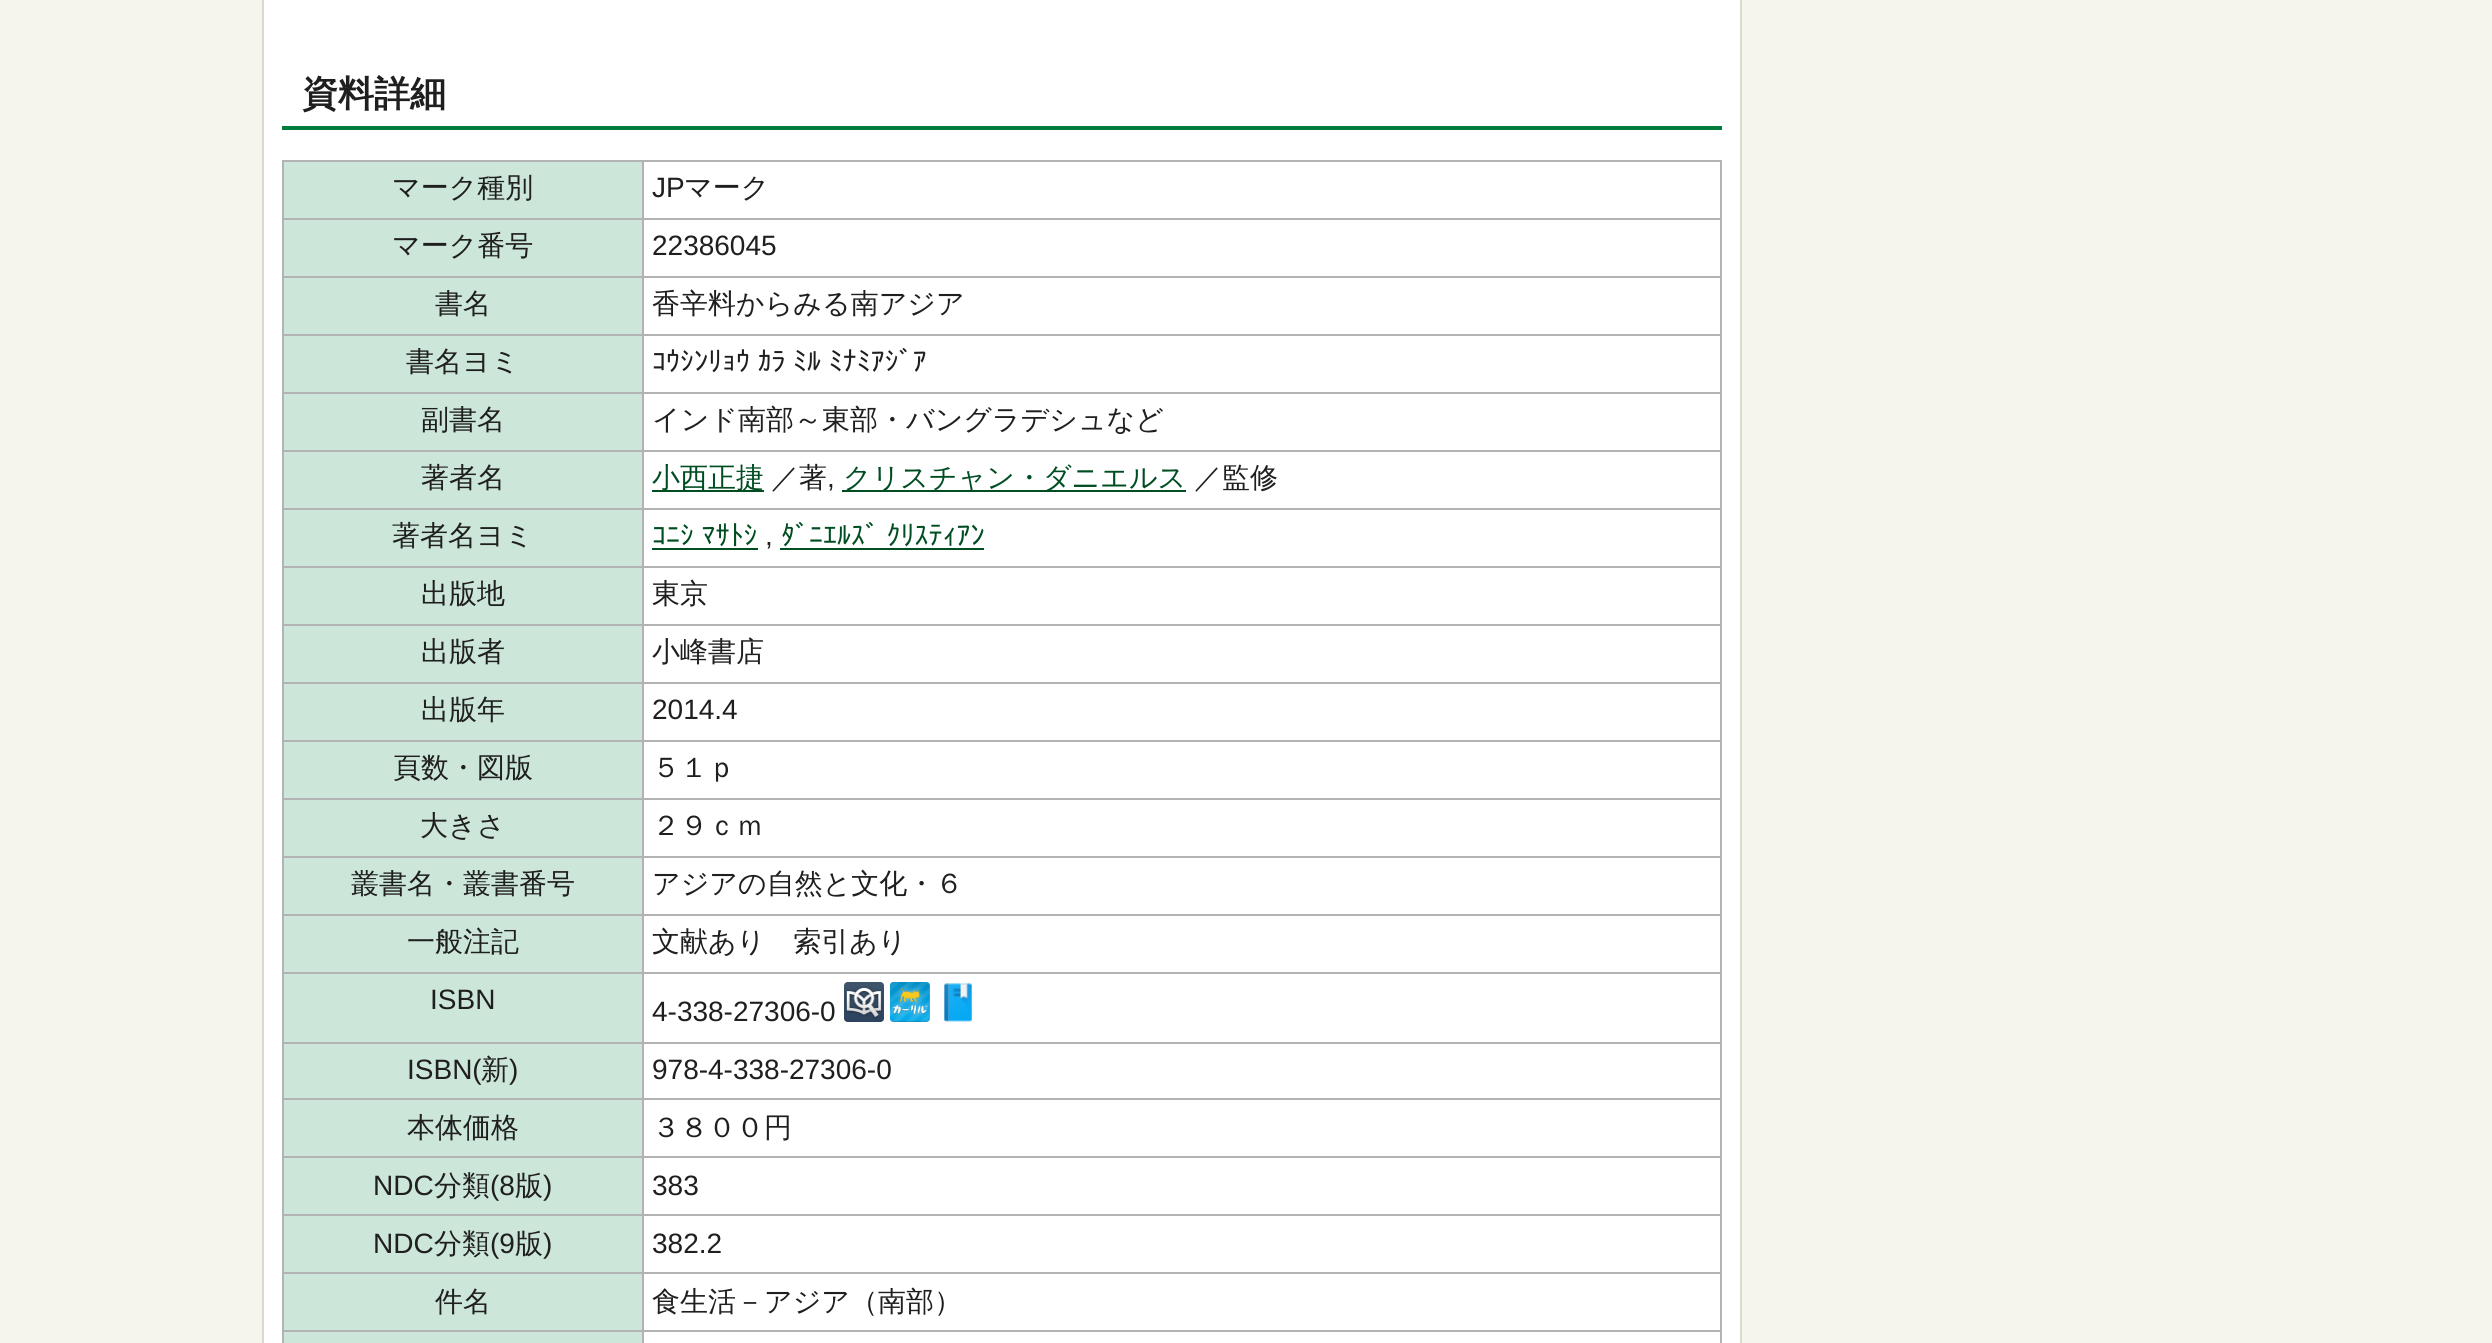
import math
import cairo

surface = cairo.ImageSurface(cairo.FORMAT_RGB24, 2492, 1343)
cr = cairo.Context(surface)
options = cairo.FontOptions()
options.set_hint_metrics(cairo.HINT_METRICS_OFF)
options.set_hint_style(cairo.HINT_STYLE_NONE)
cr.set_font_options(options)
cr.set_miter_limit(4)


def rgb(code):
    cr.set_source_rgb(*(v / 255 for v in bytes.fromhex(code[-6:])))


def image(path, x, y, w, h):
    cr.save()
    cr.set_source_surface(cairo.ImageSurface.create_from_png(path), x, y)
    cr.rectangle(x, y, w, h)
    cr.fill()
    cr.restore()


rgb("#f5f4ed")
cr.paint()
rgb("#ffffff")
cr.rectangle(263, -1, 1478, 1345)
cr.fill_preserve()
rgb("#dbdacb")
cr.stroke()
for x, y, w, h, color in [
    (282, 126, 1440, 4, "#007c3e"),
    (282, 160, 1440, 2, "#b3b3b3"),
    (1720, 160, 2, 1183, "#b3b3b3"),
    (282, 160, 2, 1183, "#b3b3b3"),
    (284, 162, 358, 56, "#cce6d9"),
    (642, 218, 1080, 2, "#b3b3b3"),
    (642, 276, 1080, 2, "#b3b3b3"),
    (642, 334, 1080, 2, "#b3b3b3"),
    (642, 392, 1080, 2, "#b3b3b3"),
    (642, 450, 1080, 2, "#b3b3b3"),
    (642, 508, 1080, 2, "#b3b3b3"),
    (642, 566, 1080, 2, "#b3b3b3"),
    (642, 624, 1080, 2, "#b3b3b3"),
    (642, 682, 1080, 2, "#b3b3b3"),
    (642, 740, 1080, 2, "#b3b3b3"),
    (642, 798, 1080, 2, "#b3b3b3"),
    (642, 856, 1080, 2, "#b3b3b3"),
    (642, 914, 1080, 2, "#b3b3b3"),
    (642, 972, 1080, 2, "#b3b3b3"),
    (642, 1042, 1080, 2, "#b3b3b3"),
    (642, 1098, 1080, 2, "#b3b3b3"),
    (642, 1156, 1080, 2, "#b3b3b3"),
    (642, 1214, 1080, 2, "#b3b3b3"),
    (642, 1272, 1080, 2, "#b3b3b3"),
    (642, 1330, 1080, 2, "#b3b3b3"),
    (642, 1330, 2, 13, "#b3b3b3"),
    (282, 1330, 362, 2, "#b3b3b3"),
    (642, 1272, 2, 60, "#b3b3b3"),
    (282, 1272, 362, 2, "#b3b3b3"),
    (642, 1214, 2, 60, "#b3b3b3"),
    (282, 1214, 362, 2, "#b3b3b3"),
    (642, 1156, 2, 60, "#b3b3b3"),
    (282, 1156, 362, 2, "#b3b3b3"),
    (642, 1098, 2, 60, "#b3b3b3"),
    (282, 1098, 362, 2, "#b3b3b3"),
    (642, 1042, 2, 58, "#b3b3b3"),
    (282, 1042, 362, 2, "#b3b3b3"),
    (642, 972, 2, 72, "#b3b3b3"),
    (282, 972, 362, 2, "#b3b3b3"),
    (642, 914, 2, 60, "#b3b3b3"),
    (282, 914, 362, 2, "#b3b3b3"),
    (642, 856, 2, 60, "#b3b3b3"),
    (282, 856, 362, 2, "#b3b3b3"),
    (642, 798, 2, 60, "#b3b3b3"),
    (282, 798, 362, 2, "#b3b3b3"),
    (642, 740, 2, 60, "#b3b3b3"),
    (282, 740, 362, 2, "#b3b3b3"),
    (642, 682, 2, 60, "#b3b3b3"),
    (282, 682, 362, 2, "#b3b3b3"),
    (642, 624, 2, 60, "#b3b3b3"),
    (282, 624, 362, 2, "#b3b3b3"),
    (642, 566, 2, 60, "#b3b3b3"),
    (282, 566, 362, 2, "#b3b3b3"),
    (642, 508, 2, 60, "#b3b3b3"),
    (282, 508, 362, 2, "#b3b3b3"),
    (642, 450, 2, 60, "#b3b3b3"),
    (282, 450, 362, 2, "#b3b3b3"),
    (642, 392, 2, 60, "#b3b3b3"),
    (282, 392, 362, 2, "#b3b3b3"),
    (642, 334, 2, 60, "#b3b3b3"),
    (282, 334, 362, 2, "#b3b3b3"),
    (642, 276, 2, 60, "#b3b3b3"),
    (282, 276, 362, 2, "#b3b3b3"),
    (642, 218, 2, 60, "#b3b3b3"),
    (282, 218, 362, 2, "#b3b3b3"),
    (642, 160, 2, 60, "#b3b3b3"),
    (284, 220, 358, 56, "#cce6d9"),
    (284, 278, 358, 56, "#cce6d9"),
    (284, 336, 358, 56, "#cce6d9"),
    (284, 394, 358, 56, "#cce6d9"),
    (284, 452, 358, 56, "#cce6d9"),
    (652, 490, 112, 2, "#004d22"),
    (842, 490, 344, 2, "#004d22"),
    (284, 510, 358, 56, "#cce6d9"),
    (652, 548, 106, 2, "#004d22"),
    (780, 548, 204, 2, "#004d22"),
    (284, 568, 358, 56, "#cce6d9"),
    (284, 626, 358, 56, "#cce6d9"),
    (284, 684, 358, 56, "#cce6d9"),
    (284, 742, 358, 56, "#cce6d9"),
    (284, 800, 358, 56, "#cce6d9"),
    (284, 858, 358, 56, "#cce6d9"),
    (284, 916, 358, 56, "#cce6d9"),
    (284, 974, 358, 68, "#cce6d9"),
]:
    rgb(color)
    cr.rectangle(x, y, w, h)
    cr.fill()
image("img/1.png", 844, 982, 40, 40)
image("img/2.png", 890, 982, 40, 40)
image("img/3.png", 944, 983, 28, 39)
for x, y, w, h, color in [
    (284, 1044, 358, 54, "#cce6d9"),
    (284, 1100, 358, 56, "#cce6d9"),
    (284, 1158, 358, 56, "#cce6d9"),
    (284, 1216, 358, 56, "#cce6d9"),
    (284, 1274, 358, 56, "#cce6d9"),
    (284, 1332, 358, 11, "#cce6d9"),
]:
    rgb(color)
    cr.rectangle(x, y, w, h)
    cr.fill()
cr.select_font_face("WenQuanYi Zen Hei", cairo.FONT_SLANT_NORMAL, cairo.FONT_WEIGHT_BOLD)
cr.set_font_size(36)
rgb("#1f1f1f")
cr.move_to(302, 106)
cr.show_text("資料詳細")
cr.select_font_face("WenQuanYi Zen Hei Medium")
cr.set_font_size(28)
cr.move_to(392, 197)
cr.show_text("マーク種別")
cr.select_font_face("Liberation Sans")
cr.move_to(652, 197)
cr.show_text("JP")
cr.select_font_face("WenQuanYi Zen Hei Medium")
cr.move_to(684, 197)
cr.show_text("マーク")
cr.move_to(392, 255)
cr.show_text("マーク番号")
cr.select_font_face("Liberation Sans")
cr.move_to(652, 255)
cr.show_text("22386045")
cr.select_font_face("WenQuanYi Zen Hei Medium")
for x, y, s in [
    (435, 313, "書名"),
    (652, 313, "香辛料からみる南アジア"),
    (406, 371, "書名ヨミ"),
]:
    cr.move_to(x, y)
    cr.show_text(s)
cr.select_font_face("IPAPGothic")
cr.move_to(652, 371)
cr.show_text("ｺｳｼﾝﾘｮｳ ｶﾗ ﾐﾙ ﾐﾅﾐｱｼﾞｱ")
cr.select_font_face("WenQuanYi Zen Hei Medium")
for x, y, s in [
    (421, 429, "副書名"),
    (652, 429, "インド南部～東部・バングラデシュなど"),
    (421, 487, "著者名"),
]:
    cr.move_to(x, y)
    cr.show_text(s)
rgb("#004d22")
cr.move_to(652, 487)
cr.show_text("小西正捷")
rgb("#1f1f1f")
cr.move_to(771, 487)
cr.show_text("／著")
cr.select_font_face("Liberation Sans")
cr.move_to(827, 487)
cr.show_text(",")
cr.select_font_face("WenQuanYi Zen Hei Medium")
rgb("#004d22")
cr.move_to(843, 487)
cr.show_text("クリスチャン・ダニエルス")
rgb("#1f1f1f")
cr.move_to(1194, 487)
cr.show_text("／監修")
cr.move_to(392, 545)
cr.show_text("著者名ヨミ")
cr.select_font_face("IPAPGothic")
rgb("#004d22")
cr.move_to(652, 545)
cr.show_text("ｺﾆｼ ﾏｻﾄｼ")
cr.select_font_face("Liberation Sans")
rgb("#1f1f1f")
cr.move_to(765, 545)
cr.show_text(",")
cr.select_font_face("IPAPGothic")
rgb("#004d22")
cr.move_to(781, 545)
cr.show_text("ﾀﾞﾆｴﾙｽﾞ ｸﾘｽﾃｨｱﾝ")
cr.select_font_face("WenQuanYi Zen Hei Medium")
rgb("#1f1f1f")
for x, y, s in [
    (421, 603, "出版地"),
    (652, 603, "東京"),
    (421, 661, "出版者"),
    (652, 661, "小峰書店"),
    (421, 719, "出版年"),
]:
    cr.move_to(x, y)
    cr.show_text(s)
cr.select_font_face("Liberation Sans")
cr.move_to(652, 719)
cr.show_text("2014.4")
cr.select_font_face("WenQuanYi Zen Hei Medium")
for x, y, s in [
    (393, 777, "頁数・図版"),
    (652, 777, "５１ｐ"),
    (420, 835, "大きさ"),
    (652, 835, "２９ｃｍ"),
    (351, 893, "叢書名・叢書番号"),
    (652, 893, "アジアの自然と文化・６"),
    (407, 951, "一般注記"),
    (652, 951, "文献あり　索引あり"),
]:
    cr.move_to(x, y)
    cr.show_text(s)
cr.select_font_face("Liberation Sans")
for x, y, s in [
    (430, 1009, "ISBN"),
    (652, 1021, "4-338-27306-0"),
    (407, 1079, "ISBN("),
]:
    cr.move_to(x, y)
    cr.show_text(s)
cr.select_font_face("WenQuanYi Zen Hei Medium")
cr.move_to(481, 1079)
cr.show_text("新")
cr.select_font_face("Liberation Sans")
cr.move_to(509, 1079)
cr.show_text(")")
cr.move_to(652, 1079)
cr.show_text("978-4-338-27306-0")
cr.select_font_face("WenQuanYi Zen Hei Medium")
cr.move_to(407, 1137)
cr.show_text("本体価格")
cr.move_to(652, 1137)
cr.show_text("３８００円")
cr.select_font_face("Liberation Sans")
cr.move_to(373, 1195)
cr.show_text("NDC")
cr.select_font_face("WenQuanYi Zen Hei Medium")
cr.move_to(434, 1195)
cr.show_text("分類")
cr.select_font_face("Liberation Sans")
cr.move_to(490, 1195)
cr.show_text("(8")
cr.select_font_face("WenQuanYi Zen Hei Medium")
cr.move_to(515, 1195)
cr.show_text("版")
cr.select_font_face("Liberation Sans")
for x, y, s in [
    (543, 1195, ")"),
    (652, 1195, "383"),
    (373, 1253, "NDC"),
]:
    cr.move_to(x, y)
    cr.show_text(s)
cr.select_font_face("WenQuanYi Zen Hei Medium")
cr.move_to(434, 1253)
cr.show_text("分類")
cr.select_font_face("Liberation Sans")
cr.move_to(490, 1253)
cr.show_text("(9")
cr.select_font_face("WenQuanYi Zen Hei Medium")
cr.move_to(515, 1253)
cr.show_text("版")
cr.select_font_face("Liberation Sans")
cr.move_to(543, 1253)
cr.show_text(")")
cr.move_to(652, 1253)
cr.show_text("382.2")
cr.select_font_face("WenQuanYi Zen Hei Medium")
cr.move_to(435, 1311)
cr.show_text("件名")
cr.move_to(652, 1311)
cr.show_text("食生活－アジア（南部）")
surface.write_to_png("page.png")
